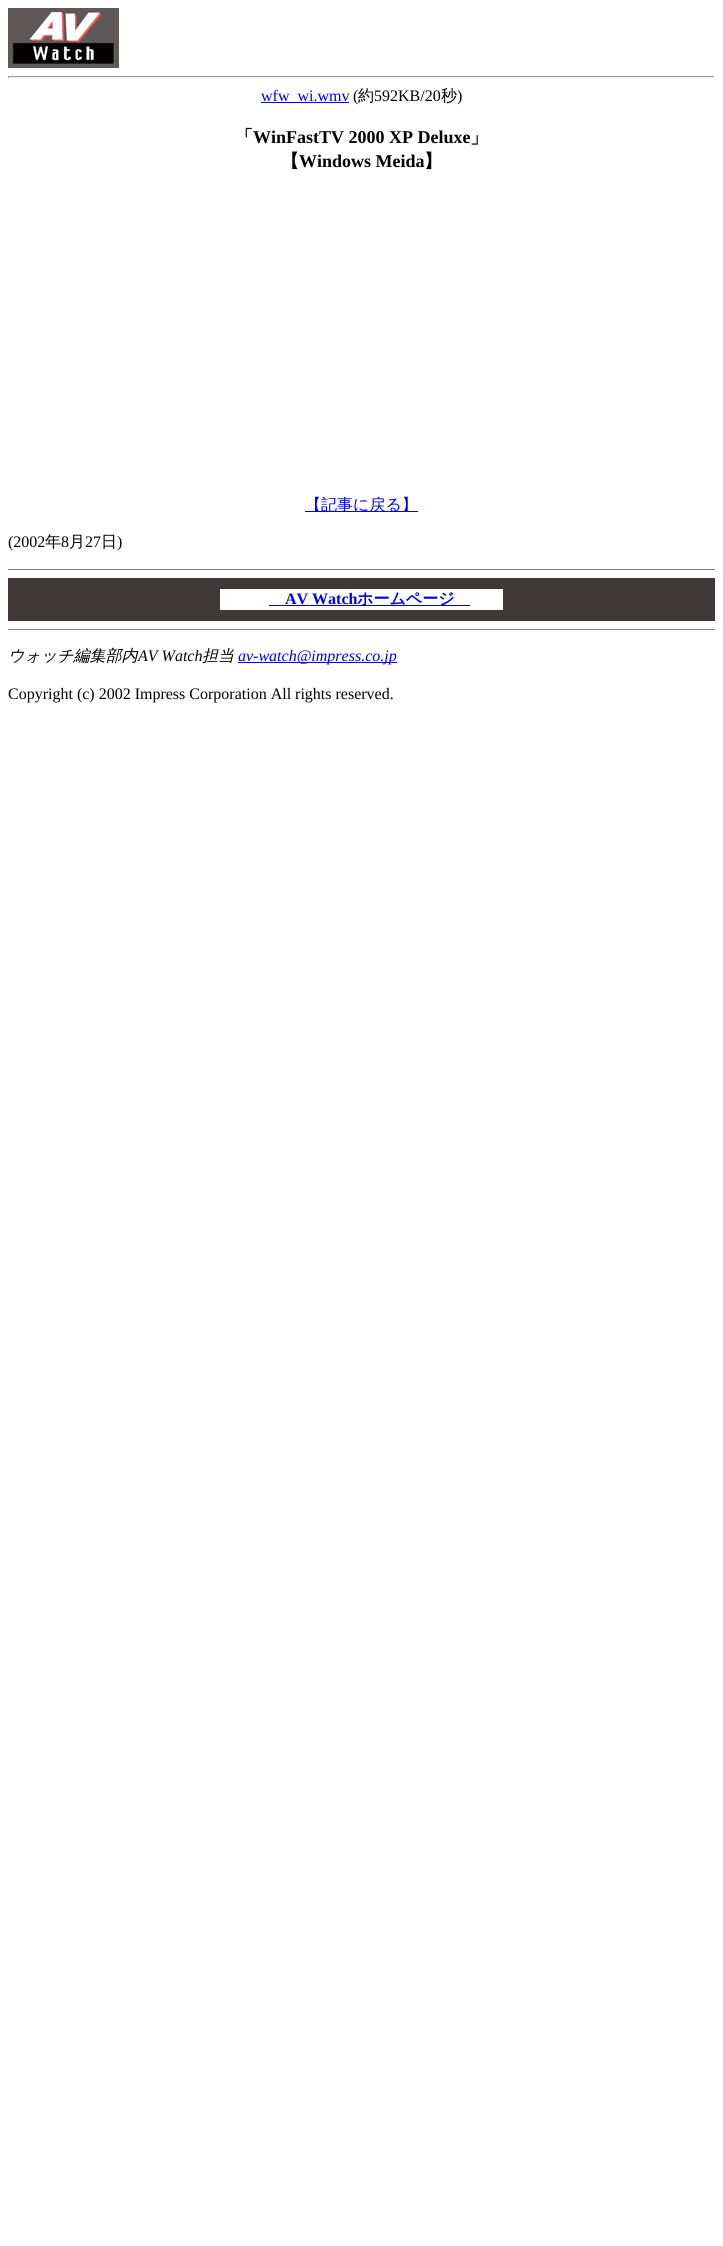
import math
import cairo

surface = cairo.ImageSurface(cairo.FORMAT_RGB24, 723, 2246)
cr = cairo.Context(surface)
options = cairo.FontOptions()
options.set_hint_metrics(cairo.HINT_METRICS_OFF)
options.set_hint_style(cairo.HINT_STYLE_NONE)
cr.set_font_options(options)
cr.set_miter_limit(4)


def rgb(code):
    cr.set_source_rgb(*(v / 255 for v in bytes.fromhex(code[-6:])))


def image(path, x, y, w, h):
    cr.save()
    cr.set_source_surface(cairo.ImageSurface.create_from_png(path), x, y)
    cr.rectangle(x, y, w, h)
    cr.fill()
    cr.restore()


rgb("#ffffff")
cr.paint()
image("img/1.png", 8, 8, 111, 60)
for x, y, w, h, color in [
    (8, 76, 707, 1, "#9f9f9f"),
    (714, 76, 1, 2, "#eeeeee"),
    (8, 77, 707, 1, "#eeeeee"),
    (8, 76, 1, 2, "#9f9f9f"),
    (261, 102, 88, 1, "#0000ee"),
    (305, 511, 113, 1, "#0000ee"),
    (8, 569, 707, 1, "#808080"),
    (8, 578, 707, 11, "#3e3838"),
    (8, 589, 212, 21, "#3e3838"),
    (269, 605, 201, 1, "#0000ee"),
    (503, 589, 212, 21, "#3e3838"),
    (8, 610, 707, 11, "#3e3838"),
    (8, 629, 707, 1, "#808080"),
    (238, 662, 159, 1, "#0000ee"),
]:
    rgb(color)
    cr.rectangle(x, y, w, h)
    cr.fill()
cr.select_font_face("Liberation Serif")
cr.set_font_size(16)
cr.move_to(261, 101)
cr.show_text("wfw_wi.wmv")
rgb("#000000")
cr.move_to(353, 101)
cr.show_text("(")
cr.select_font_face("WenQuanYi Zen Hei Medium")
cr.move_to(358, 101)
cr.show_text("約")
cr.select_font_face("Liberation Serif")
cr.move_to(374, 101)
cr.show_text("592KB/20")
cr.select_font_face("WenQuanYi Zen Hei Medium")
cr.move_to(441, 101)
cr.show_text("秒")
cr.select_font_face("Liberation Serif")
cr.move_to(457, 101)
cr.show_text(")")
cr.select_font_face("WenQuanYi Zen Hei", cairo.FONT_SLANT_NORMAL, cairo.FONT_WEIGHT_BOLD)
cr.set_font_size(18)
cr.move_to(235, 143)
cr.show_text("「")
cr.select_font_face("Liberation Serif", cairo.FONT_SLANT_NORMAL, cairo.FONT_WEIGHT_BOLD)
cr.move_to(253, 143)
cr.show_text("WinFastTV 2000 XP Deluxe")
cr.select_font_face("WenQuanYi Zen Hei", cairo.FONT_SLANT_NORMAL, cairo.FONT_WEIGHT_BOLD)
cr.move_to(470, 143)
cr.show_text("」")
cr.move_to(281, 167)
cr.show_text("【")
cr.select_font_face("Liberation Serif", cairo.FONT_SLANT_NORMAL, cairo.FONT_WEIGHT_BOLD)
cr.move_to(299, 167)
cr.show_text("Windows Meida")
cr.select_font_face("WenQuanYi Zen Hei", cairo.FONT_SLANT_NORMAL, cairo.FONT_WEIGHT_BOLD)
cr.move_to(424, 167)
cr.show_text("】")
cr.select_font_face("WenQuanYi Zen Hei Medium")
cr.set_font_size(16)
rgb("#0000ee")
cr.move_to(305, 510)
cr.show_text("【記事に戻る】")
cr.select_font_face("Liberation Serif")
rgb("#000000")
cr.move_to(8, 547)
cr.show_text("(2002")
cr.select_font_face("WenQuanYi Zen Hei Medium")
cr.move_to(45, 547)
cr.show_text("年")
cr.select_font_face("Liberation Serif")
cr.move_to(61, 547)
cr.show_text("8")
cr.select_font_face("WenQuanYi Zen Hei Medium")
cr.move_to(69, 547)
cr.show_text("月")
cr.select_font_face("Liberation Serif")
cr.move_to(85, 547)
cr.show_text("27")
cr.select_font_face("WenQuanYi Zen Hei Medium")
cr.move_to(101, 547)
cr.show_text("日")
cr.select_font_face("Liberation Serif")
cr.move_to(117, 547)
cr.show_text(")")
cr.select_font_face("Liberation Serif", cairo.FONT_SLANT_NORMAL, cairo.FONT_WEIGHT_BOLD)
rgb("#0000ee")
cr.move_to(285, 604)
cr.show_text("AV Watch")
cr.select_font_face("WenQuanYi Zen Hei", cairo.FONT_SLANT_NORMAL, cairo.FONT_WEIGHT_BOLD)
cr.move_to(357, 604)
cr.show_text("ホームページ")
cr.select_font_face("WenQuanYi Zen Hei Medium", cairo.FONT_SLANT_ITALIC)
rgb("#000000")
cr.move_to(8, 661)
cr.show_text("ウォッチ編集部内")
cr.select_font_face("Liberation Serif", cairo.FONT_SLANT_ITALIC)
cr.move_to(138, 661)
cr.show_text("AV Watch")
cr.select_font_face("WenQuanYi Zen Hei Medium", cairo.FONT_SLANT_ITALIC)
cr.move_to(202, 661)
cr.show_text("担当")
cr.select_font_face("Liberation Serif", cairo.FONT_SLANT_ITALIC)
rgb("#0000ee")
cr.move_to(238, 661)
cr.show_text("av-watch@impress.co.jp")
cr.select_font_face("Liberation Serif")
rgb("#000000")
cr.move_to(8, 699)
cr.show_text("Copyright (c) 2002 Impress Corporation All rights reserved.")
surface.write_to_png("page.png")
